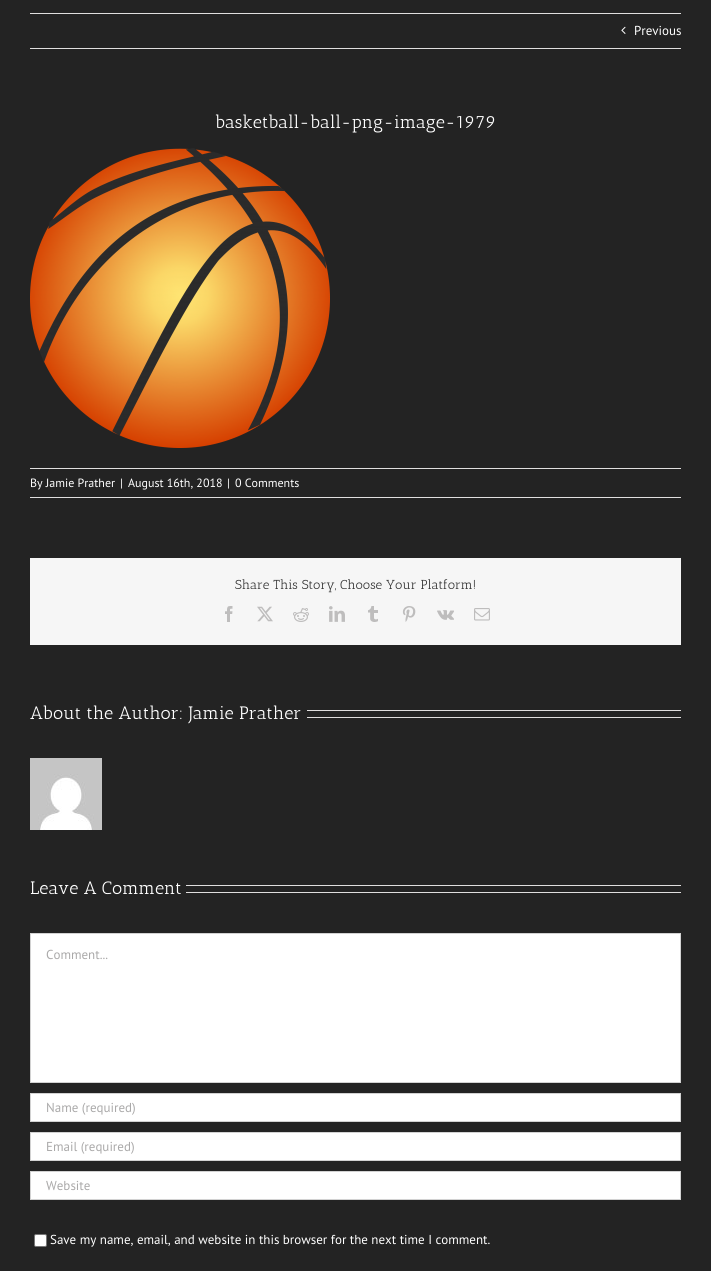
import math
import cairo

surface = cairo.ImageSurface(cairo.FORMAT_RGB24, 711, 1271)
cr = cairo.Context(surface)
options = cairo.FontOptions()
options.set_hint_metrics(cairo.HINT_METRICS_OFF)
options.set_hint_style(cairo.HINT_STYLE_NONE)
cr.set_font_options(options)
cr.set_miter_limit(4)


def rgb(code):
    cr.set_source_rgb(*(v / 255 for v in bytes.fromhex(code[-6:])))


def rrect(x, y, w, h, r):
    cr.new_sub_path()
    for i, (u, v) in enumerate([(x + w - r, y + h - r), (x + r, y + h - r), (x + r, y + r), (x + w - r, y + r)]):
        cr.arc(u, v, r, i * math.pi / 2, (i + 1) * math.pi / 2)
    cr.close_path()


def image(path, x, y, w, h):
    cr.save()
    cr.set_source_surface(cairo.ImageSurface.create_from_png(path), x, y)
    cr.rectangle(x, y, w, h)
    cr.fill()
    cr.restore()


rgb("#232323")
cr.paint()
rgb("#e0dede")
cr.rectangle(30, 13, 651, 1)
cr.fill()
cr.rectangle(30, 48, 651, 1)
cr.fill()
image("img/1.png", 621, 26, 5, 8)
image("img/2.png", 30, 148, 300, 300)
for x, y, w, h, color in [
    (30, 468, 651, 1, "#e0dede"),
    (30, 497, 651, 1, "#e0dede"),
    (30, 558, 651, 87, "#f6f6f6"),
]:
    rgb(color)
    cr.rectangle(x, y, w, h)
    cr.fill()
image("img/3.png", 225, 606, 8, 16)
image("img/4.png", 257, 606, 16, 16)
image("img/5.png", 293, 608, 16, 14)
image("img/6.png", 329, 606, 16, 16)
image("img/7.png", 368, 606, 10, 16)
image("img/8.png", 402, 606, 14, 16)
image("img/9.png", 437, 610, 17, 10)
image("img/10.png", 474, 608, 16, 13)
rgb("#e0dede")
cr.rectangle(307, 710, 374, 1)
cr.fill()
cr.rectangle(307, 717, 374, 1)
cr.fill()
image("img/11.png", 30, 758, 72, 72)
cr.rectangle(186, 885, 495, 1)
cr.fill()
cr.rectangle(186, 892, 495, 1)
cr.fill()
rgb("#ffffff")
cr.rectangle(30.5, 933.5, 650, 149)
cr.fill_preserve()
rgb("#d2d2d2")
cr.set_line_width(1)
cr.stroke()
rgb("#ffffff")
cr.rectangle(30.5, 1093.5, 650, 28)
cr.fill_preserve()
rgb("#d2d2d2")
cr.stroke()
rgb("#ffffff")
cr.rectangle(30.5, 1132.5, 650, 28)
cr.fill_preserve()
rgb("#d2d2d2")
cr.stroke()
rgb("#ffffff")
cr.rectangle(30.5, 1171.5, 650, 28)
cr.fill_preserve()
rgb("#d2d2d2")
cr.stroke()
rgb("#ffffff")
rrect(34.5, 1234.5, 12, 12, 1.5)
cr.fill_preserve()
rgb("#767676")
cr.stroke()
cr.select_font_face("PT Sans")
cr.set_font_size(13)
rgb("#ffffff")
cr.move_to(634, 35)
cr.show_text("Previous")
cr.select_font_face("Antic Slab")
cr.set_font_size(18)
cr.move_to(215, 128)
cr.show_text("basketball-ball-png-image-1979")
cr.select_font_face("PT Sans")
cr.set_font_size(12)
for x, y, s in [
    (30, 487, "By Jamie Prather"),
    (120, 487, "|"),
    (128, 487, "August 16th, 2018"),
    (227, 487, "|"),
    (235, 487, "0 Comments"),
]:
    cr.move_to(x, y)
    cr.show_text(s)
cr.select_font_face("Antic Slab")
cr.set_font_size(13)
rgb("#333333")
cr.move_to(235, 589)
cr.show_text("Share This Story, Choose Your Platform!")
cr.set_font_size(18)
rgb("#ffffff")
cr.move_to(30, 719)
cr.show_text("About the Author: Jamie Prather")
cr.move_to(30, 894)
cr.show_text("Leave A Comment")
cr.select_font_face("PT Sans")
cr.set_font_size(13)
rgb("#aaa9a9")
for x, y, s in [
    (46, 959, "Comment..."),
    (46, 1112, "Name (required)"),
    (46, 1151, "Email (required)"),
    (46, 1190, "Website"),
]:
    cr.move_to(x, y)
    cr.show_text(s)
rgb("#ffffff")
cr.move_to(50, 1244)
cr.show_text("Save my name, email, and website in this browser for the next time I comment.")
surface.write_to_png("page.png")
